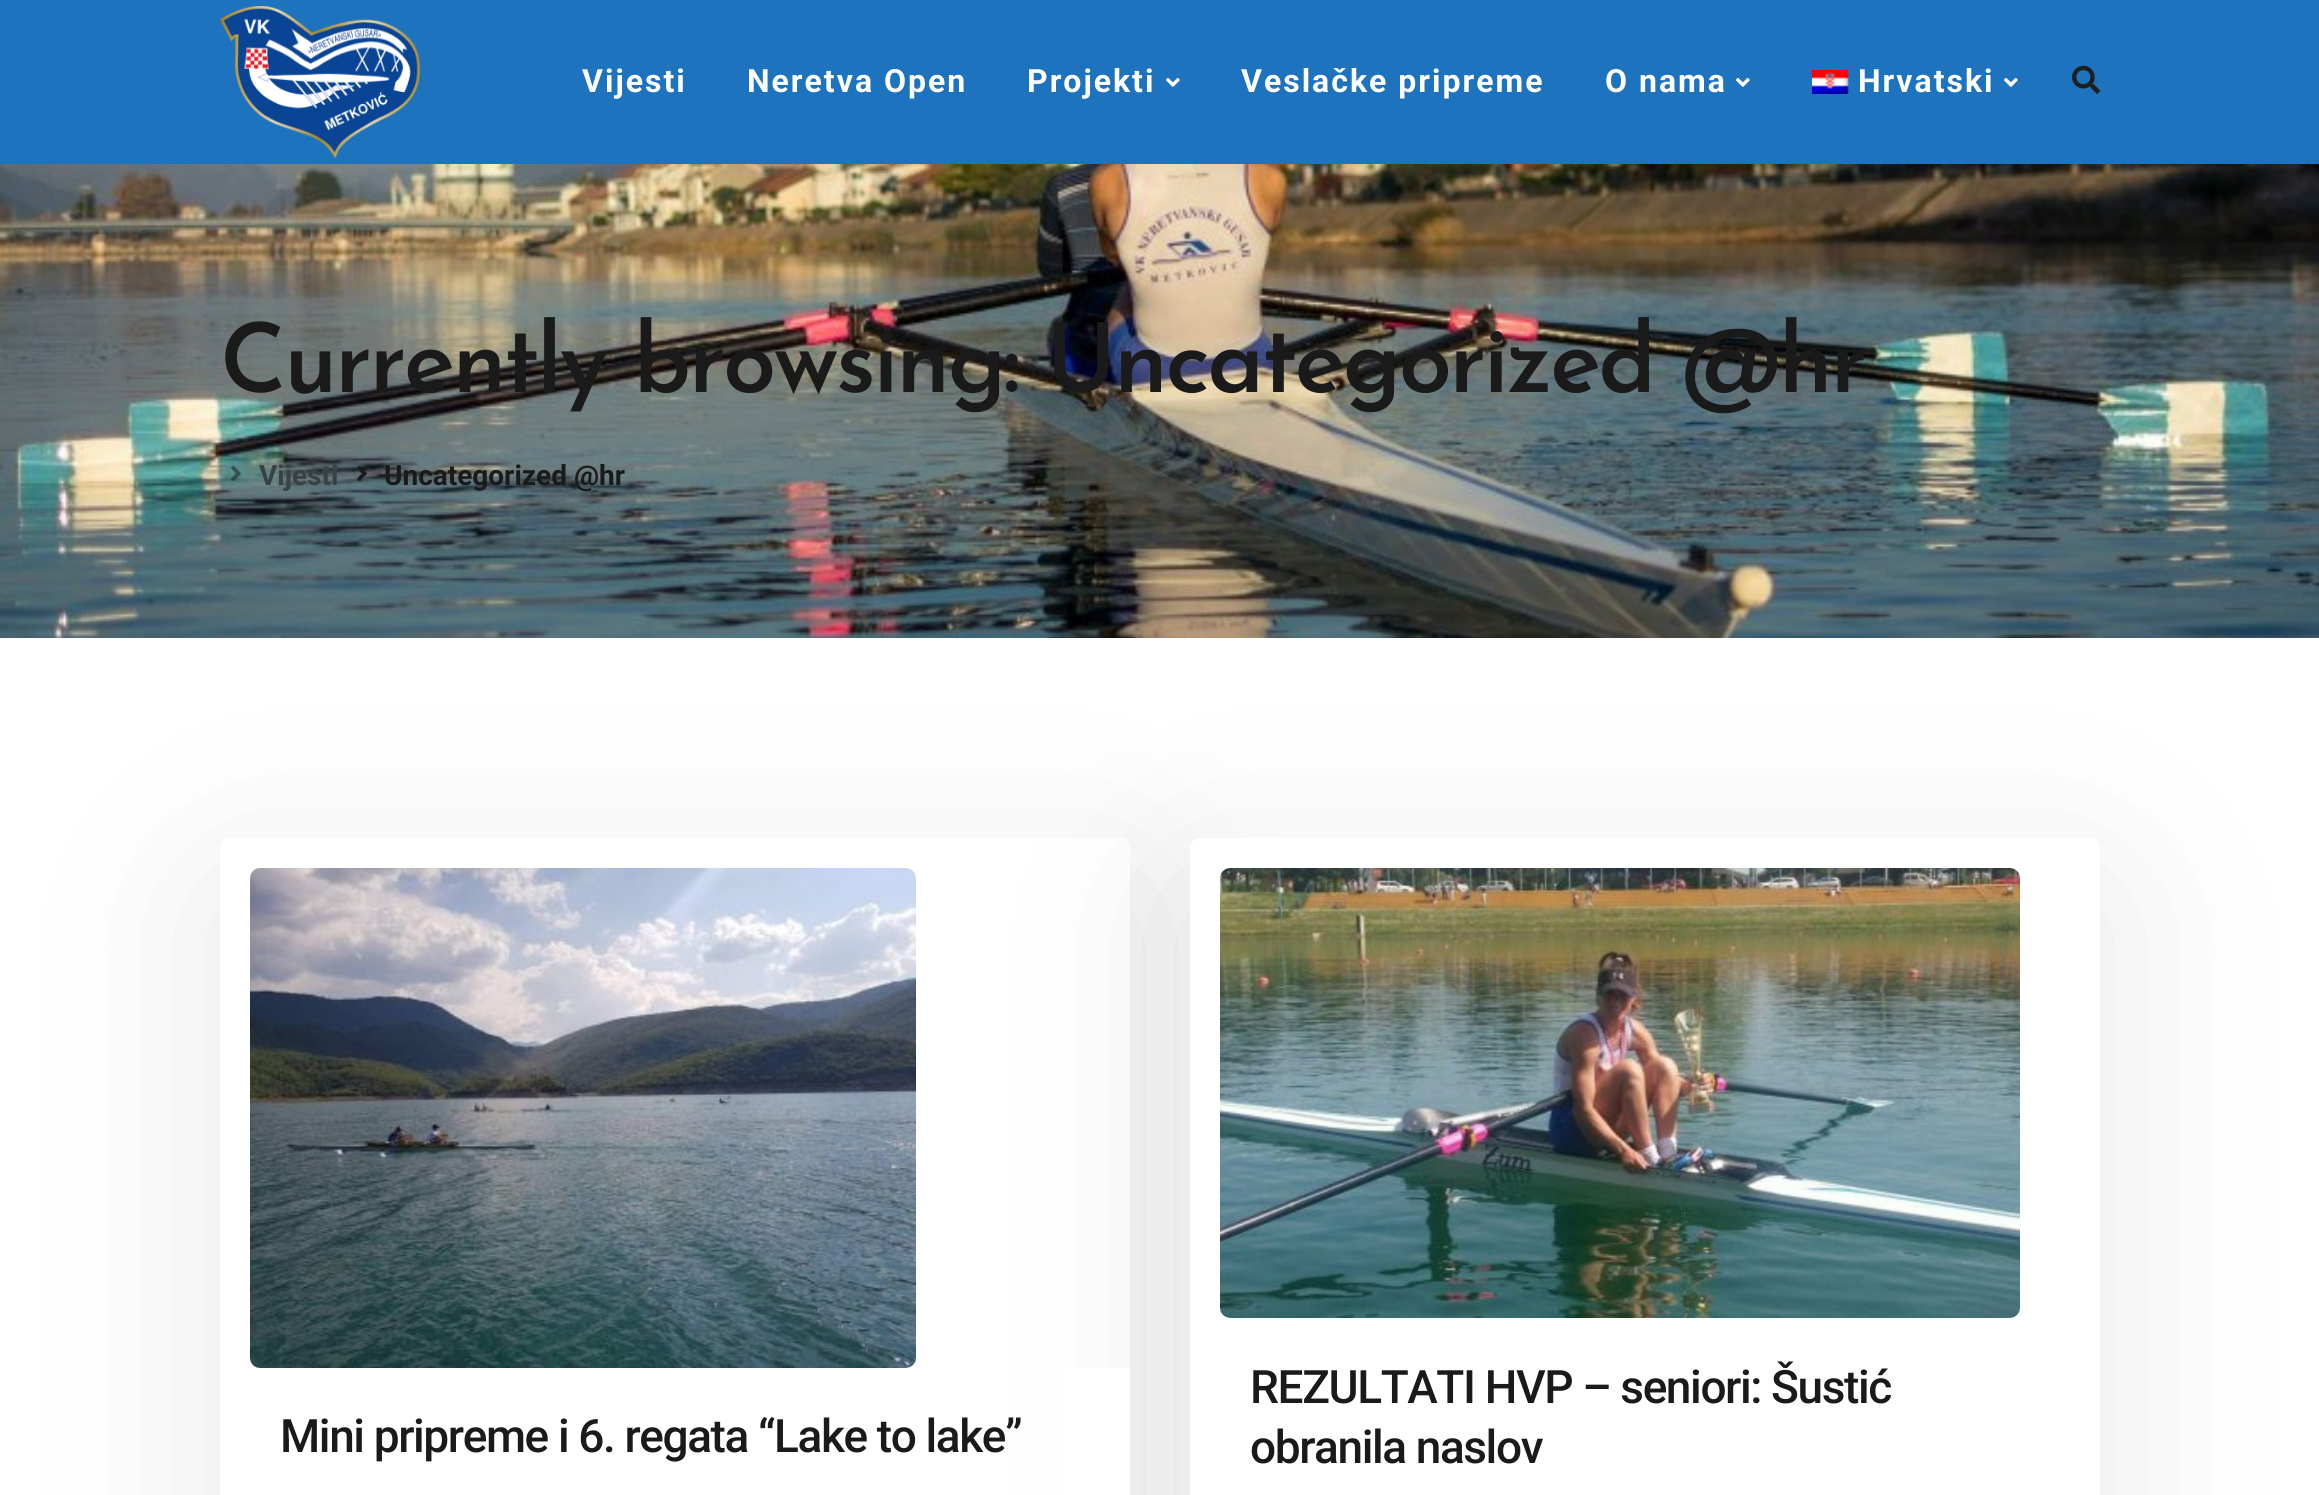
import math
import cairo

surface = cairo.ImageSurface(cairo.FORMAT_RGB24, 2319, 1495)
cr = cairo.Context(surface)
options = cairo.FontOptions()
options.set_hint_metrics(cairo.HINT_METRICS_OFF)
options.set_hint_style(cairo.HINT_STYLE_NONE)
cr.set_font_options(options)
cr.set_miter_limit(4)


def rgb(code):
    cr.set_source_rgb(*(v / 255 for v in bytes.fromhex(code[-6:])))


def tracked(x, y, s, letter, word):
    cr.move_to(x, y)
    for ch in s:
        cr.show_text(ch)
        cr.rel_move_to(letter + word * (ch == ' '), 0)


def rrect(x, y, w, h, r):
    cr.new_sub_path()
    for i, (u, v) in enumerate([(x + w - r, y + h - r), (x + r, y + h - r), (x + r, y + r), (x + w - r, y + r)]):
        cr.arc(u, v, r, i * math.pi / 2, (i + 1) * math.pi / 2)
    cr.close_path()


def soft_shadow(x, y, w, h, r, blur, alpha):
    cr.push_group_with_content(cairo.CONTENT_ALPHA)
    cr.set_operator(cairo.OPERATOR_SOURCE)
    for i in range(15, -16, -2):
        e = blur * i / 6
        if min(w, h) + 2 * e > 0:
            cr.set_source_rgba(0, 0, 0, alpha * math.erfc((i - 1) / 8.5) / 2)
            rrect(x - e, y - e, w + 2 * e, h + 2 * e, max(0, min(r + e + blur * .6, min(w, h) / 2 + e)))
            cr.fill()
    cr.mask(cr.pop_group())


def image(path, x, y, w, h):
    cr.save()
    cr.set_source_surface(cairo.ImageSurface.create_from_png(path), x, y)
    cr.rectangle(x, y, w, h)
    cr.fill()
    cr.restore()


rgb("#ffffff")
cr.paint()
rgb("#1e73be")
cr.rectangle(0, 0, 2319, 164)
cr.fill()
image("img/1.png", 220, 6, 200, 152)
image("img/2.png", 1166, 78, 14, 9)
image("img/2.png", 1736, 78, 14, 9)
image("img/3.png", 1812, 70, 37, 24)
image("img/2.png", 2004, 78, 14, 9)
image("img/4.png", 2072, 65, 28, 29)
image("img/5.png", 0, 164, 2319, 474)
image("img/6.png", 231, 466, 10, 15)
image("img/7.png", 357, 466, 10, 15)
cr.save()
cr.set_fill_rule(cairo.FILL_RULE_EVEN_ODD)
cr.new_path()
cr.move_to(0, 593)
cr.line_to(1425, 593)
cr.line_to(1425, 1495)
cr.line_to(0, 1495)
cr.close_path()
cr.move_to(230, 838)
cr.line_to(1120, 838)
cr.curve_to(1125.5, 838, 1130, 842.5, 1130, 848)
cr.line_to(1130, 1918)
cr.curve_to(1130, 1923.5, 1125.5, 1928, 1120, 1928)
cr.line_to(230, 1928)
cr.curve_to(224.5, 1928, 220, 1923.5, 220, 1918)
cr.line_to(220, 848)
cr.curve_to(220, 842.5, 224.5, 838, 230, 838)
cr.close_path()
cr.clip()
rgb("#000000")
soft_shadow(220, 888, 910, 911, 10, 98, 0.1)
cr.restore()
image("img/8.png", 250, 868, 666, 500)
rgb("#000000")
soft_shadow(1190, 888, 910, 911, 10, 98, 0.1)
rgb("#ffffff")
cr.rectangle(1065, 1368, 65, 127)
cr.fill()
rrect(1190, 838, 910, 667, 10)
cr.fill()
image("img/9.png", 1220, 868, 800, 450)
cr.select_font_face("Roboto", cairo.FONT_SLANT_NORMAL, cairo.FONT_WEIGHT_BOLD)
cr.set_font_size(32)
for x, y, s in [
    (582, 92, "Vijesti"),
    (747, 92, "Neretva Open"),
    (1027, 92, "Projekti"),
    (1241, 92, "Veslačke pripreme"),
    (1605, 92, "O nama"),
    (1858, 92, "Hrvatski"),
]:
    tracked(x, y, s, 2, 0)
cr.select_font_face("Josefin Sans Thin")
cr.set_font_size(96)
rgb("#1a1a1a")
tracked(220, 392, "Currently browsing: Uncategorized @hr", -2.9, 0)
cr.select_font_face("Roboto", cairo.FONT_SLANT_NORMAL, cairo.FONT_WEIGHT_BOLD)
cr.set_font_size(28)
rgb("#384143")
cr.move_to(259, 485)
cr.show_text("Vijesti")
rgb("#1a1a1a")
cr.move_to(384, 485)
cr.show_text("Uncategorized @hr")
cr.select_font_face("Roboto Medium")
cr.set_font_size(46)
for x, y, s in [
    (280, 1452, "Mini pripreme i 6. regata “Lake to lake”"),
    (1250, 1403, "REZULTATI HVP – seniori: Šustić"),
    (1250, 1463, "obranila naslov"),
]:
    tracked(x, y, s, -1.4, 0)
surface.write_to_png("page.png")
